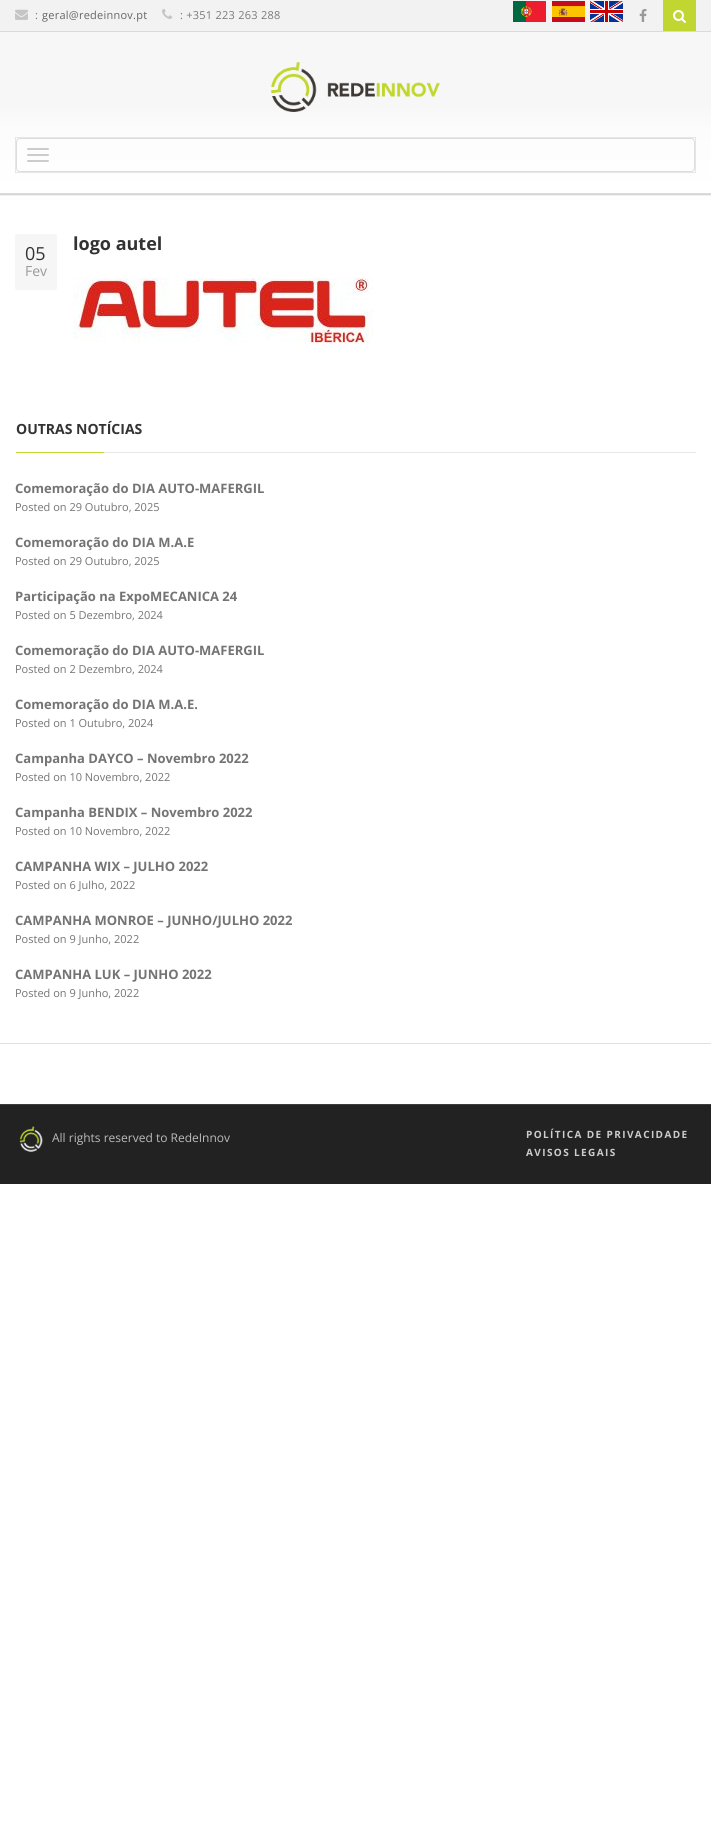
import math
import cairo

surface = cairo.ImageSurface(cairo.FORMAT_RGB24, 711, 1834)
cr = cairo.Context(surface)
options = cairo.FontOptions()
options.set_hint_metrics(cairo.HINT_METRICS_OFF)
options.set_hint_style(cairo.HINT_STYLE_NONE)
cr.set_font_options(options)
cr.set_miter_limit(4)


def rgb(code):
    cr.set_source_rgb(*(v / 255 for v in bytes.fromhex(code[-6:])))


def tracked(x, y, s, letter, word):
    cr.move_to(x, y)
    for ch in s:
        cr.show_text(ch)
        cr.rel_move_to(letter + word * (ch == ' '), 0)


def rrect(x, y, w, h, r):
    cr.new_sub_path()
    for i, (u, v) in enumerate([(x + w - r, y + h - r), (x + r, y + h - r), (x + r, y + r), (x + w - r, y + r)]):
        cr.arc(u, v, r, i * math.pi / 2, (i + 1) * math.pi / 2)
    cr.close_path()


def soft_shadow(x, y, w, h, r, blur, alpha):
    cr.push_group_with_content(cairo.CONTENT_ALPHA)
    cr.set_operator(cairo.OPERATOR_SOURCE)
    for i in range(15, -16, -2):
        e = blur * i / 6
        if min(w, h) + 2 * e > 0:
            cr.set_source_rgba(0, 0, 0, alpha * math.erfc((i - 1) / 8.5) / 2)
            rrect(x - e, y - e, w + 2 * e, h + 2 * e, max(0, min(r + e + blur * .6, min(w, h) / 2 + e)))
            cr.fill()
    cr.mask(cr.pop_group())


def image(path, x, y, w, h):
    cr.save()
    cr.set_source_surface(cairo.ImageSurface.create_from_png(path), x, y)
    cr.rectangle(x, y, w, h)
    cr.fill()
    cr.restore()


rgb("#ffffff")
cr.paint()
rgb("#f2f2f2")
cr.rectangle(0, 0, 711, 31)
cr.fill()
rgb("#dadada")
cr.rectangle(0, 31, 711, 1)
cr.fill()
image("img/1.png", 15, 9, 13, 11)
image("img/2.png", 162, 8, 11, 11)
image("img/3.png", 513, 1, 33, 21)
image("img/4.png", 552, 1, 33, 21)
image("img/5.png", 590, 1, 33, 21)
image("img/6.png", 639, 9, 8, 13)
rgb("#000000")
soft_shadow(0, 33, 711, 162, 0, 0.5, 0.2)
rgb("#c1d631")
cr.rectangle(663, 0, 33, 31)
cr.fill()
image("img/7.png", 673, 10, 13, 13)
gradient = cairo.LinearGradient(356, 32, 356, 193)
gradient.add_color_stop_rgba(0.46, 0.969, 0.969, 0.969, 1)
gradient.add_color_stop_rgba(0.6, 0.988, 0.988, 0.988, 1)
gradient.add_color_stop_rgba(1, 1, 1, 1, 1)
cr.set_source(gradient)
cr.rectangle(0, 32, 711, 161)
cr.fill()
rgb("#dddddd")
cr.rectangle(0, 193, 711, 1)
cr.fill()
image("img/8.png", 270, 62, 170, 50)
cr.rectangle(15.5, 137.5, 680, 35)
rgb("#e6e6e6")
cr.set_line_width(1)
cr.stroke()
rrect(16.5, 138.5, 678, 33, 3.5)
rgb("#dddddd")
cr.stroke()
rgb("#cccccc")
rrect(27, 148, 22, 2, 1)
cr.fill()
rrect(27, 154, 22, 2, 1)
cr.fill()
rrect(27, 160, 22, 2, 1)
cr.fill()
rgb("#f6f6f6")
rrect(15, 234, 42, 56, 2)
cr.fill()
image("img/9.png", 73, 277, 300, 69)
for x, y, w, h, color in [
    (16, 452, 88, 1, "#c1d631"),
    (104, 452, 592, 1, "#e8e8e8"),
    (0, 1043, 711, 1, "#e0e0e0"),
    (0, 1105, 711, 79, "#222222"),
    (0, 1104, 711, 1, "#3c3c3c"),
]:
    rgb(color)
    cr.rectangle(x, y, w, h)
    cr.fill()
image("img/10.png", 19, 1126, 24, 26)
cr.select_font_face("Open Sans")
cr.set_font_size(11)
rgb("#7a7a7a")
tracked(35, 19, ":", 0.25, 0)
rgb("#666666")
tracked(42, 19, "geral@redeinnov.pt", 0.25, 0)
rgb("#7a7a7a")
tracked(180, 19, ": +351 223 263 288", 0.25, 0)
cr.set_font_size(18)
rgb("#333333")
cr.move_to(25, 260)
cr.show_text("05")
cr.set_font_size(14)
rgb("#999999")
cr.move_to(25, 276)
cr.show_text("Fev")
cr.select_font_face("Open Sans", cairo.FONT_SLANT_NORMAL, cairo.FONT_WEIGHT_BOLD)
cr.set_font_size(18)
rgb("#333333")
cr.move_to(73, 250)
cr.show_text("logo autel")
cr.set_font_size(14)
cr.move_to(16, 434)
cr.show_text("OUTRAS NOTÍCIAS")
cr.set_font_size(13)
rgb("#747474")
cr.move_to(15, 493)
cr.show_text("Comemoração do DIA AUTO-MAFERGIL")
cr.select_font_face("Open Sans")
cr.set_font_size(11)
cr.move_to(15, 511)
cr.show_text("Posted on 29 Outubro, 2025")
cr.select_font_face("Open Sans", cairo.FONT_SLANT_NORMAL, cairo.FONT_WEIGHT_BOLD)
cr.set_font_size(13)
cr.move_to(15, 547)
cr.show_text("Comemoração do DIA M.A.E")
cr.select_font_face("Open Sans")
cr.set_font_size(11)
cr.move_to(15, 565)
cr.show_text("Posted on 29 Outubro, 2025")
cr.save()
cr.rectangle(15, 591, 681, 34)
cr.clip()
cr.select_font_face("Open Sans", cairo.FONT_SLANT_NORMAL, cairo.FONT_WEIGHT_BOLD)
cr.set_font_size(13)
cr.move_to(15, 601)
cr.show_text("Participação na ExpoMECÂNICA 24")
cr.restore()
cr.move_to(15, 619)
cr.show_text("Posted on 5 Dezembro, 2024")
cr.select_font_face("Open Sans", cairo.FONT_SLANT_NORMAL, cairo.FONT_WEIGHT_BOLD)
cr.set_font_size(13)
cr.move_to(15, 655)
cr.show_text("Comemoração do DIA AUTO-MAFERGIL")
cr.select_font_face("Open Sans")
cr.set_font_size(11)
cr.move_to(15, 673)
cr.show_text("Posted on 2 Dezembro, 2024")
cr.select_font_face("Open Sans", cairo.FONT_SLANT_NORMAL, cairo.FONT_WEIGHT_BOLD)
cr.set_font_size(13)
cr.move_to(15, 709)
cr.show_text("Comemoração do DIA M.A.E.")
cr.select_font_face("Open Sans")
cr.set_font_size(11)
cr.move_to(15, 727)
cr.show_text("Posted on 1 Outubro, 2024")
cr.select_font_face("Open Sans", cairo.FONT_SLANT_NORMAL, cairo.FONT_WEIGHT_BOLD)
cr.set_font_size(13)
cr.move_to(15, 763)
cr.show_text("Campanha DAYCO – Novembro 2022")
cr.select_font_face("Open Sans")
cr.set_font_size(11)
cr.move_to(15, 781)
cr.show_text("Posted on 10 Novembro, 2022")
cr.select_font_face("Open Sans", cairo.FONT_SLANT_NORMAL, cairo.FONT_WEIGHT_BOLD)
cr.set_font_size(13)
cr.move_to(15, 817)
cr.show_text("Campanha BENDIX – Novembro 2022")
cr.select_font_face("Open Sans")
cr.set_font_size(11)
cr.move_to(15, 835)
cr.show_text("Posted on 10 Novembro, 2022")
cr.select_font_face("Open Sans", cairo.FONT_SLANT_NORMAL, cairo.FONT_WEIGHT_BOLD)
cr.set_font_size(13)
cr.move_to(15, 871)
cr.show_text("CAMPANHA WIX – JULHO 2022")
cr.select_font_face("Open Sans")
cr.set_font_size(11)
cr.move_to(15, 889)
cr.show_text("Posted on 6 Julho, 2022")
cr.select_font_face("Open Sans", cairo.FONT_SLANT_NORMAL, cairo.FONT_WEIGHT_BOLD)
cr.set_font_size(13)
cr.move_to(15, 925)
cr.show_text("CAMPANHA MONROE – JUNHO/JULHO 2022")
cr.select_font_face("Open Sans")
cr.set_font_size(11)
cr.move_to(15, 943)
cr.show_text("Posted on 9 Junho, 2022")
cr.select_font_face("Open Sans", cairo.FONT_SLANT_NORMAL, cairo.FONT_WEIGHT_BOLD)
cr.set_font_size(13)
cr.move_to(15, 979)
cr.show_text("CAMPANHA LUK – JUNHO 2022")
cr.select_font_face("Open Sans")
cr.set_font_size(11)
cr.move_to(15, 997)
cr.show_text("Posted on 9 Junho, 2022")
cr.set_font_size(12)
rgb("#bbbbbb")
cr.move_to(52, 1142)
cr.show_text("All rights reserved to RedeInnov")
cr.select_font_face("Open Sans", cairo.FONT_SLANT_NORMAL, cairo.FONT_WEIGHT_BOLD)
cr.set_font_size(10)
rgb("#cccccc")
tracked(526, 1138, "POLÍTICA DE PRIVACIDADE", 1.4, 0)
tracked(526, 1156, "AVISOS LEGAIS", 1.4, 0)
surface.write_to_png("page.png")
